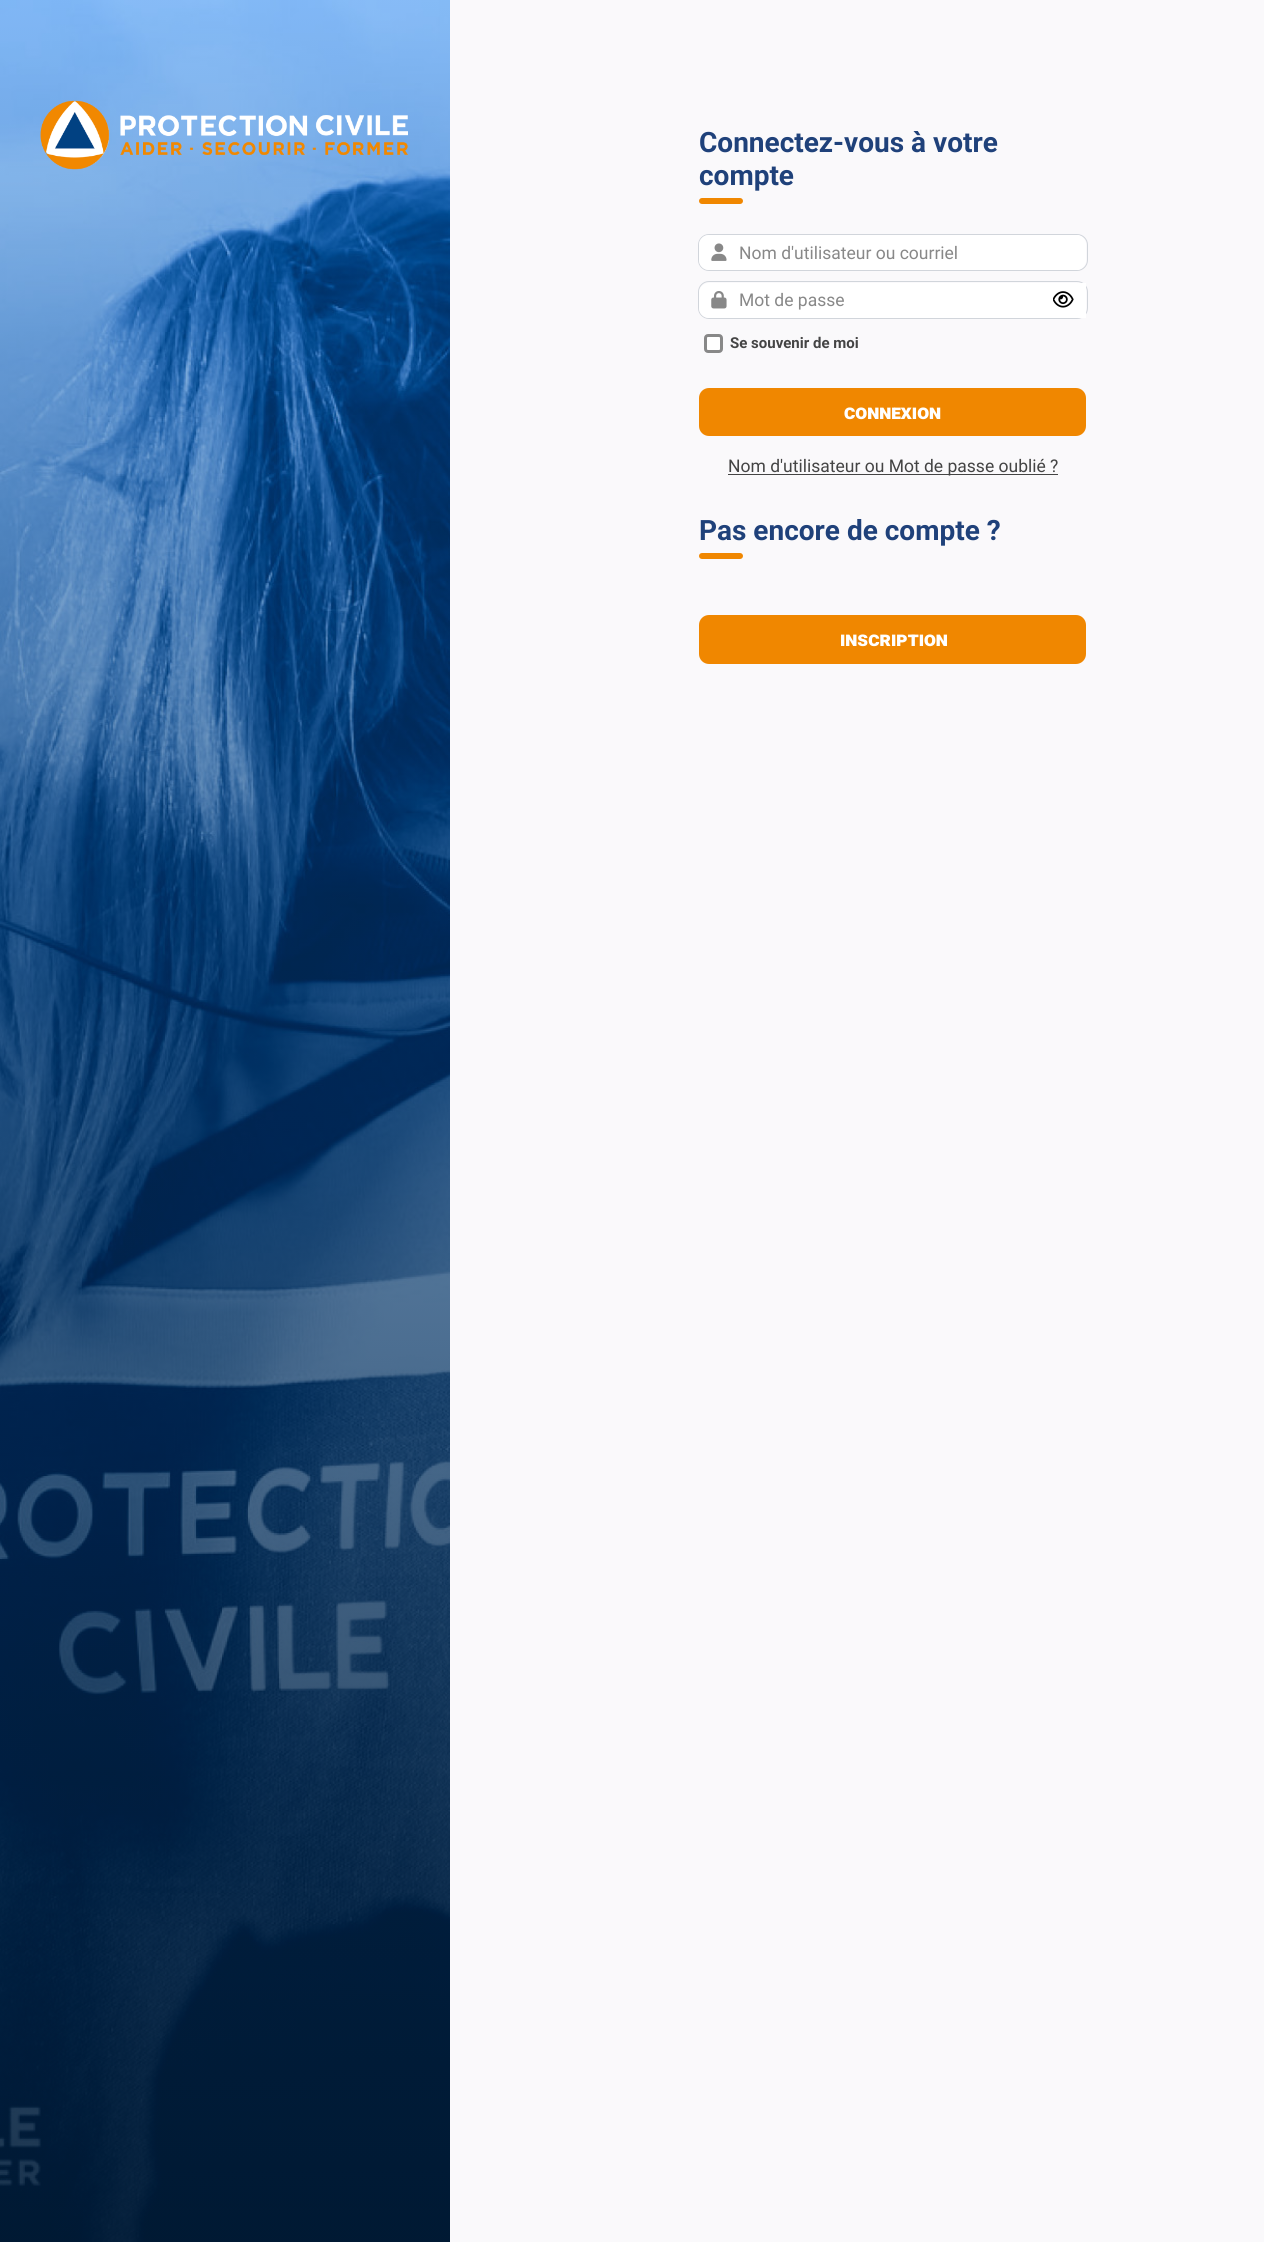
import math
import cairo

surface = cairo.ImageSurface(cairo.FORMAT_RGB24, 1264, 2242)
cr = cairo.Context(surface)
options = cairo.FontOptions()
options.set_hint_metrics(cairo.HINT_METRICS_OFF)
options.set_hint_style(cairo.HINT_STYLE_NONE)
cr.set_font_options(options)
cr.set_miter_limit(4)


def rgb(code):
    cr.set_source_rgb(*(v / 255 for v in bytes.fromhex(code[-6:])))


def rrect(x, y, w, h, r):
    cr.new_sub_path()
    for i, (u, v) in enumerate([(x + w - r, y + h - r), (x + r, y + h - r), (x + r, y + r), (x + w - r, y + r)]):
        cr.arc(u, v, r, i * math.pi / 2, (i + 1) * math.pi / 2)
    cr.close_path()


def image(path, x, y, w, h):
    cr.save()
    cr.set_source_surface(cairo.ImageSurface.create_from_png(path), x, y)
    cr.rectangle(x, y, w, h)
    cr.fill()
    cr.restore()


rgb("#faf9fb")
cr.paint()
image("img/1.png", 0, 0, 450, 2242)
image("img/2.png", 40, 100, 368, 70)
rgb("#f08700")
rrect(699, 198, 44, 6, 3)
cr.fill()
rrect(698.5, 234.5, 389, 36, 10.5)
rgb("#d1d5db")
cr.set_line_width(1)
cr.stroke()
rgb("#ffffff")
rrect(699, 235, 387, 35, 10)
cr.fill()
image("img/3.png", 711, 243, 16, 18)
cr.new_path()
cr.move_to(739, 235)
cr.line_to(1076, 235)
cr.curve_to(1081.5, 235, 1086, 239.5, 1086, 245)
cr.line_to(1086, 260)
cr.curve_to(1086, 265.5, 1081.5, 270, 1076, 270)
cr.line_to(739, 270)
cr.close_path()
cr.fill()
rrect(698.5, 281.5, 389, 37, 10.5)
rgb("#d1d5db")
cr.stroke()
rgb("#ffffff")
rrect(699, 283, 387, 35, 10)
cr.fill()
image("img/4.png", 711, 291, 16, 18)
cr.rectangle(1078, 283, 8, 35)
cr.fill()
image("img/5.png", 1053, 291, 21, 17)
rrect(705.5, 335.5, 16, 16, 2.5)
cr.fill_preserve()
rgb("#888888")
cr.set_line_width(3)
cr.stroke()
rgb("#f08700")
rrect(699, 388, 387, 48, 10)
cr.fill()
rgb("#444444")
cr.rectangle(728, 474, 330, 1)
cr.fill()
rgb("#f08700")
rrect(699, 553, 44, 6, 3)
cr.fill()
rrect(699, 615, 387, 49, 10)
cr.fill()
cr.select_font_face("Roboto", cairo.FONT_SLANT_NORMAL, cairo.FONT_WEIGHT_BOLD)
cr.set_font_size(28)
rgb("#1f417a")
cr.move_to(699, 152)
cr.show_text("Connectez-vous à votre")
cr.move_to(699, 185)
cr.show_text("compte")
cr.select_font_face("Roboto")
cr.set_font_size(17.5)
rgb("#888888")
cr.move_to(739, 259)
cr.show_text("Nom d'utilisateur ou courriel")
cr.move_to(739, 306)
cr.show_text("Mot de passe")
cr.select_font_face("Roboto", cairo.FONT_SLANT_NORMAL, cairo.FONT_WEIGHT_BOLD)
cr.set_font_size(15)
rgb("#444444")
cr.move_to(730, 348)
cr.show_text("Se souvenir de moi")
cr.select_font_face("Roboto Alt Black")
cr.set_font_size(20)
rgb("#ffffff")
cr.move_to(844, 419)
cr.show_text("Connexion")
cr.select_font_face("Roboto")
cr.set_font_size(17.5)
rgb("#444444")
cr.move_to(728, 472)
cr.show_text("Nom d'utilisateur ou Mot de passe oublié ?")
cr.select_font_face("Roboto", cairo.FONT_SLANT_NORMAL, cairo.FONT_WEIGHT_BOLD)
cr.set_font_size(28)
rgb("#1f417a")
cr.move_to(699, 540)
cr.show_text("Pas encore de compte ?")
cr.select_font_face("Roboto Alt Black")
cr.set_font_size(20)
rgb("#ffffff")
cr.move_to(840, 646)
cr.show_text("Inscription")
surface.write_to_png("page.png")
